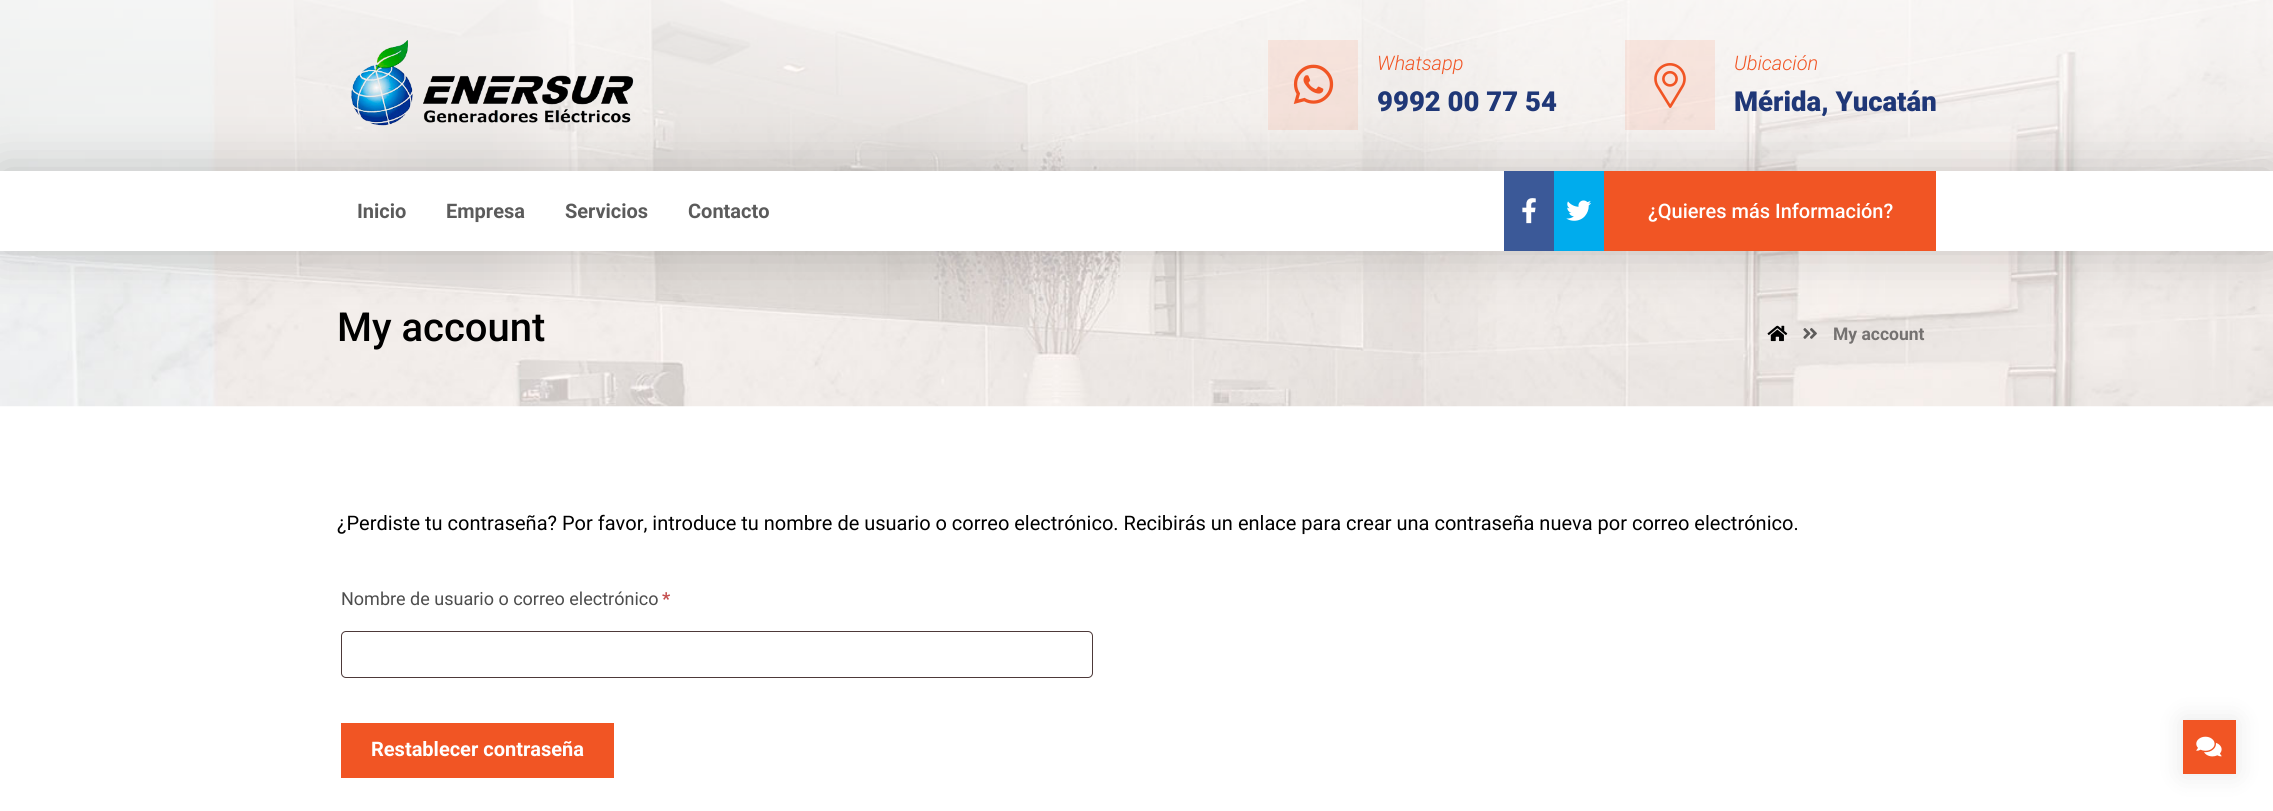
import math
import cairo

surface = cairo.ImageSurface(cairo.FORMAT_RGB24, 2273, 811)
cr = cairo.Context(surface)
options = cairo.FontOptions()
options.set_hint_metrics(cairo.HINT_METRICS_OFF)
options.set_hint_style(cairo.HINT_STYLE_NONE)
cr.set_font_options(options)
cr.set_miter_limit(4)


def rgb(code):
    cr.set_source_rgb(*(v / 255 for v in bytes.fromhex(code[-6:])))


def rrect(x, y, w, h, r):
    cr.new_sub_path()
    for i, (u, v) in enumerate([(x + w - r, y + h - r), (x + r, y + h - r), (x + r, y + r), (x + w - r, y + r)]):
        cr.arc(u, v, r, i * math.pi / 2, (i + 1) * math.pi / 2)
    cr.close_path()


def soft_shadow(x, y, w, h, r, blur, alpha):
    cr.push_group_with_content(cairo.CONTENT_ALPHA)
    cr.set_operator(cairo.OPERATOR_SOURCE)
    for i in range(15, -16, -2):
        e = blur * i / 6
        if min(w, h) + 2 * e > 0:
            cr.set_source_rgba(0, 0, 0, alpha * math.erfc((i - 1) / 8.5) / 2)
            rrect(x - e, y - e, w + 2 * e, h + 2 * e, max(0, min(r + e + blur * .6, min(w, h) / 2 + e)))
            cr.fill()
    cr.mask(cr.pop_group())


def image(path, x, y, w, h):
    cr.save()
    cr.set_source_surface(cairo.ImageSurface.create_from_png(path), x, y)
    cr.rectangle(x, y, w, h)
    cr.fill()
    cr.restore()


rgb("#ffffff")
cr.paint()
image("img/6.png", 0, 0, 2273, 407)
image("img/1.png", 351, 40, 283, 86)
cr.set_source_rgba(0.945, 0.333, 0.141, 0.1)
cr.rectangle(1268, 40, 90, 90)
cr.fill()
image("img/2.png", 1293, 64, 41, 40)
cr.rectangle(1625, 40, 90, 90)
cr.fill()
image("img/3.png", 1654, 63, 32, 45)
image("img/7.png", 1767, 325, 21, 17)
rgb("#000000")
soft_shadow(0, 171, 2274, 80, 0, 25, 0.2)
rgb("#ffffff")
cr.rectangle(0, 171, 2273, 80)
cr.fill()
rgb("#3b5998")
cr.rectangle(1504, 171, 50, 80)
cr.fill()
image("img/4.png", 1522, 198, 14, 26)
rgb("#00aced")
cr.rectangle(1554, 171, 50, 80)
cr.fill()
image("img/5.png", 1566, 200, 25, 21)
rgb("#f15524")
cr.rectangle(1604, 171, 332, 80)
cr.fill()
image("img/8.png", 1803, 328, 14, 11)
rrect(341.5, 631.5, 751, 46, 4.5)
rgb("#4d3939")
cr.set_line_width(1)
cr.stroke()
rgb("#f15524")
cr.rectangle(341, 723, 273, 55)
cr.fill()
rgb("#000000")
soft_shadow(2183, 720, 53, 54, 0, 12.5, 0.1)
rgb("#f15524")
cr.rectangle(2183, 720, 53, 54)
cr.fill()
image("img/9.png", 2196, 736, 26, 21)
cr.select_font_face("Roboto Light", cairo.FONT_SLANT_ITALIC)
cr.set_font_size(20)
cr.move_to(1377, 70)
cr.show_text("Whatsapp")
cr.select_font_face("Roboto Black")
cr.set_font_size(27.5)
rgb("#1f3777")
cr.move_to(1377, 111)
cr.show_text("9992 00 77 54")
cr.select_font_face("Roboto Light", cairo.FONT_SLANT_ITALIC)
cr.set_font_size(20)
rgb("#f15524")
cr.move_to(1734, 70)
cr.show_text("Ubicación")
cr.select_font_face("Roboto Black")
cr.set_font_size(27.5)
rgb("#1f3777")
cr.move_to(1734, 111)
cr.show_text("Mérida, Yucatán")
cr.select_font_face("Roboto", cairo.FONT_SLANT_NORMAL, cairo.FONT_WEIGHT_BOLD)
cr.set_font_size(20)
rgb("#5b5b5b")
for x, y, s in [
    (357, 218, "Inicio"),
    (446, 218, "Empresa"),
    (565, 218, "Servicios"),
    (688, 218, "Contacto"),
]:
    cr.move_to(x, y)
    cr.show_text(s)
cr.select_font_face("Roboto Medium")
rgb("#ffffff")
cr.move_to(1648, 218)
cr.show_text("¿Quieres más Información?")
cr.set_font_size(40)
rgb("#000000")
cr.move_to(337, 341)
cr.show_text("My account")
cr.select_font_face("Roboto", cairo.FONT_SLANT_NORMAL, cairo.FONT_WEIGHT_BOLD)
cr.set_font_size(17.5)
rgb("#757271")
cr.move_to(1833, 340)
cr.show_text("My account")
cr.select_font_face("Roboto")
cr.set_font_size(20)
rgb("#000000")
cr.move_to(337, 530)
cr.show_text("¿Perdiste tu contraseña? Por favor, introduce tu nombre de usuario o correo electrónico. Recibirás un enlace para crear una contraseña nueva por correo electrónico.")
cr.set_font_size(18)
rgb("#4d4d4d")
cr.move_to(341, 605)
cr.show_text("Nombre de usuario o correo electrónico")
cr.select_font_face("Roboto", cairo.FONT_SLANT_NORMAL, cairo.FONT_WEIGHT_BOLD)
rgb("#c44d4d")
cr.move_to(662, 605)
cr.show_text("*")
cr.set_font_size(20)
rgb("#ffffff")
cr.move_to(371, 756)
cr.show_text("Restablecer contraseña")
surface.write_to_png("page.png")
